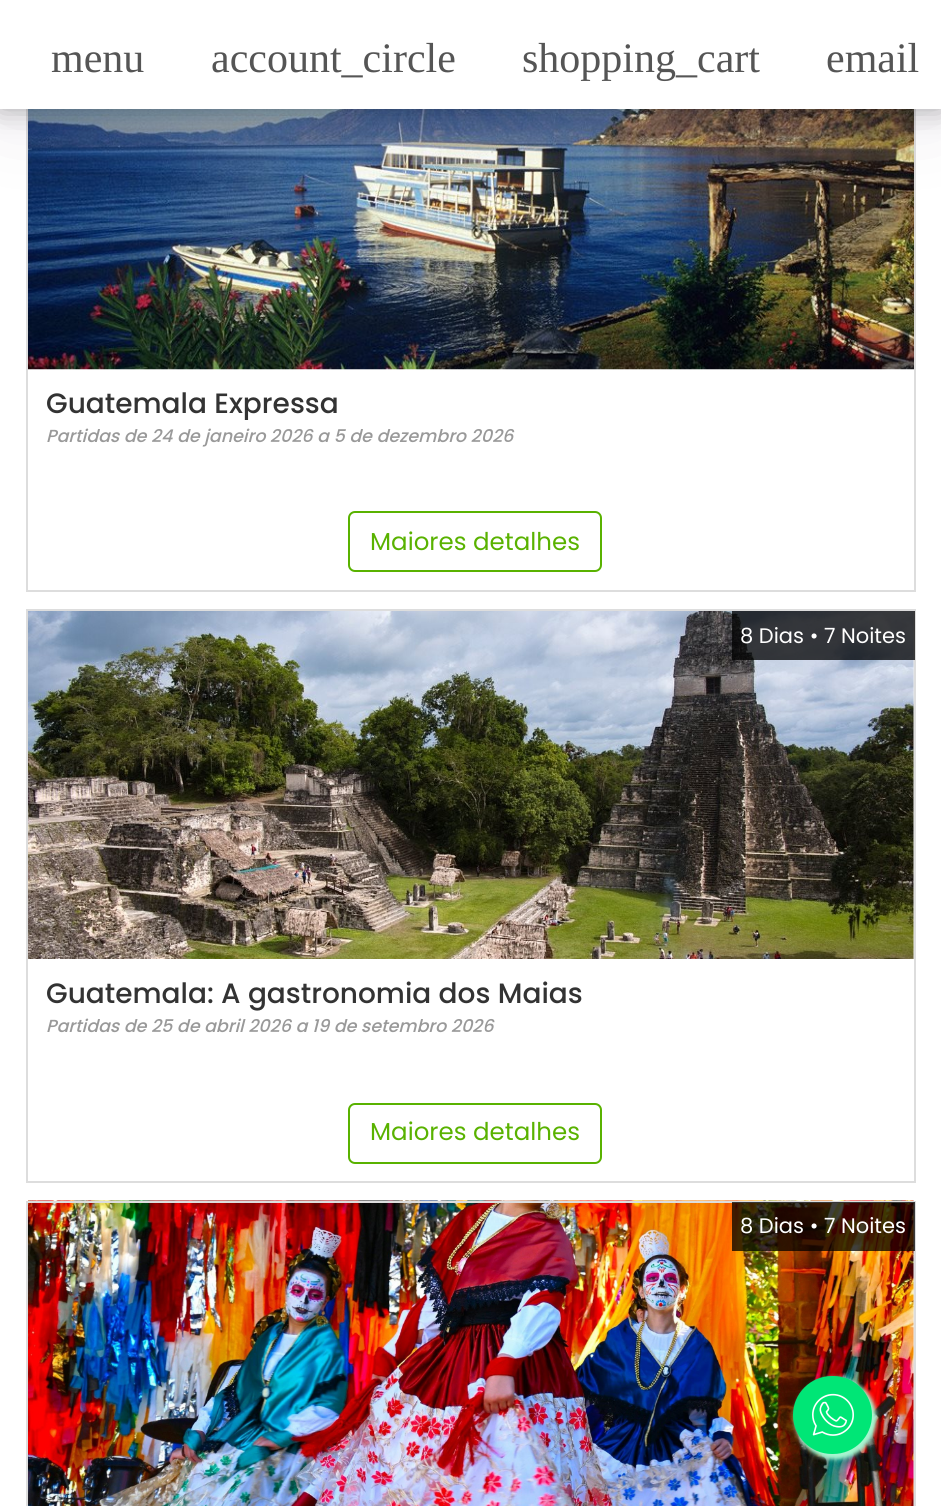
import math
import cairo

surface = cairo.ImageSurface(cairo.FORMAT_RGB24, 941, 1506)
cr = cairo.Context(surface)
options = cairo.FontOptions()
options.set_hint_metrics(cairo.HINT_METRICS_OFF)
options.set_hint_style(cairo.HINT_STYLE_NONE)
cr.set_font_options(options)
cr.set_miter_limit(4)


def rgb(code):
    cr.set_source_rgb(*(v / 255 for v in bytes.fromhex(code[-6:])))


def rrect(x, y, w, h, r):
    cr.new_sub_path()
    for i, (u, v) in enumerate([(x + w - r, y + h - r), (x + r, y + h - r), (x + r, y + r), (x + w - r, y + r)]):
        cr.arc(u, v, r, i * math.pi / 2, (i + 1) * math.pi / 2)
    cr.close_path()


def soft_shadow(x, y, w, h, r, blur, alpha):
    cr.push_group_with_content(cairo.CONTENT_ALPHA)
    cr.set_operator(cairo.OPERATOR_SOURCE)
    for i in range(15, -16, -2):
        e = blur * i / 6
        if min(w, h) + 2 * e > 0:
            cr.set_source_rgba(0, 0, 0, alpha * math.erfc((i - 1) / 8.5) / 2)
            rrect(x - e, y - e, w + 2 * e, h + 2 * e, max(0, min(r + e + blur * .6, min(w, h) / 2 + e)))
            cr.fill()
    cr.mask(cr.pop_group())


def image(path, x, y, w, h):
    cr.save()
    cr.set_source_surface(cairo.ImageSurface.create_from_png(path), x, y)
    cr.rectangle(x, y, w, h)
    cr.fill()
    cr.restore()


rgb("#ffffff")
cr.paint()
image("img/1.png", 28, 109, 886, 261)
rgb("#dddddd")
cr.rectangle(914, 109, 2, 483)
cr.fill()
cr.rectangle(26, 109, 2, 260)
cr.fill()
rgb("#523f69")
soft_shadow(0, 0, 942, 109, 0, 44, 0.15)
rgb("#ffffff")
cr.rectangle(0, 0, 941, 109)
cr.fill()
cr.save()
cr.set_fill_rule(cairo.FILL_RULE_EVEN_ODD)
cr.new_path()
cr.move_to(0, 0)
cr.line_to(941, 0)
cr.line_to(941, 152)
cr.line_to(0, 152)
cr.close_path()
cr.move_to(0, 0)
cr.line_to(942, 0)
cr.line_to(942, 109)
cr.line_to(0, 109)
cr.close_path()
cr.clip()
rgb("#000000")
soft_shadow(0, 0, 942, 109, 0, 14, 0.3)
cr.restore()
rgb("#dddddd")
cr.rectangle(26, 590, 889, 2)
cr.fill()
cr.rectangle(26, 369, 2, 223)
cr.fill()
rrect(349, 512, 252, 59, 6)
rgb("#59b200")
cr.stroke()
rgb("#ececec")
cr.rectangle(913, 611, 1, 348)
cr.fill()
image("img/2.png", 28, 611, 886, 348)
rgb("#dddddd")
cr.rectangle(26, 609, 889, 2)
cr.rectangle(914, 609, 2, 574)
cr.rectangle(26, 609, 2, 350)
cr.fill()
cr.set_source_rgba(0, 0, 0, 0.75)
cr.rectangle(732, 611, 183, 49)
cr.fill()
rgb("#dddddd")
cr.rectangle(26, 1181, 889, 2)
cr.rectangle(26, 959, 2, 224)
cr.fill()
rrect(349, 1104, 252, 59, 6)
rgb("#59b200")
cr.stroke()
rgb("#ececec")
cr.rectangle(913, 1203, 1, 303)
cr.fill()
image("img/3.png", 28, 1200, 886, 306)
rgb("#dddddd")
cr.rectangle(26, 1201, 889, 2)
cr.rectangle(914, 1201, 2, 305)
cr.rectangle(26, 1201, 2, 305)
cr.fill()
cr.set_source_rgba(0, 0, 0, 0.75)
cr.rectangle(732, 1202, 183, 49)
cr.fill()
rgb("#a8f6d0")
soft_shadow(796, 1379, 79, 79, 39.5, 2.5, 1)
soft_shadow(796, 1379, 79, 79, 39.5, 2.5, 1)
rgb("#00e676")
rrect(793, 1376, 79, 78, 39)
cr.fill()
image("img/4.png", 812, 1393, 42, 43)
cr.select_font_face("Liberation Serif")
cr.set_font_size(42)
rgb("#555555")
for x, y, s in [
    (51, 72, "menu"),
    (211, 72, "account_circle"),
    (522, 72, "shopping_cart"),
    (826, 72, "email"),
]:
    cr.move_to(x, y)
    cr.show_text(s)
cr.save()
cr.rectangle(46, 387, 859, 33)
cr.clip()
cr.select_font_face("Poppins Medium")
cr.set_font_size(28)
rgb("#333333")
cr.move_to(46, 413)
cr.show_text("Guatemala Expressa")
cr.restore()
cr.select_font_face("Poppins Medium", cairo.FONT_SLANT_ITALIC)
cr.set_font_size(17.5)
rgb("#999999")
cr.move_to(46, 442)
cr.show_text("Partidas de 24 de janeiro 2026 a 5 de dezembro 2026")
cr.select_font_face("Poppins")
cr.set_font_size(24.5)
rgb("#59b200")
cr.move_to(370, 550)
cr.show_text("Maiores detalhes")
cr.set_font_size(21)
rgb("#ffffff")
cr.move_to(740, 643)
cr.show_text("8 Dias • 7 Noites")
cr.select_font_face("Poppins Medium")
cr.set_font_size(28)
rgb("#333333")
cr.move_to(46, 1003)
cr.show_text("Guatemala: A gastronomia dos Maias")
cr.select_font_face("Poppins Medium", cairo.FONT_SLANT_ITALIC)
cr.set_font_size(17.5)
rgb("#999999")
cr.move_to(46, 1032)
cr.show_text("Partidas de 25 de abril 2026 a 19 de setembro 2026")
cr.select_font_face("Poppins")
cr.set_font_size(24.5)
rgb("#59b200")
cr.move_to(370, 1140)
cr.show_text("Maiores detalhes")
cr.set_font_size(21)
rgb("#ffffff")
cr.move_to(740, 1233)
cr.show_text("8 Dias • 7 Noites")
surface.write_to_png("page.png")
